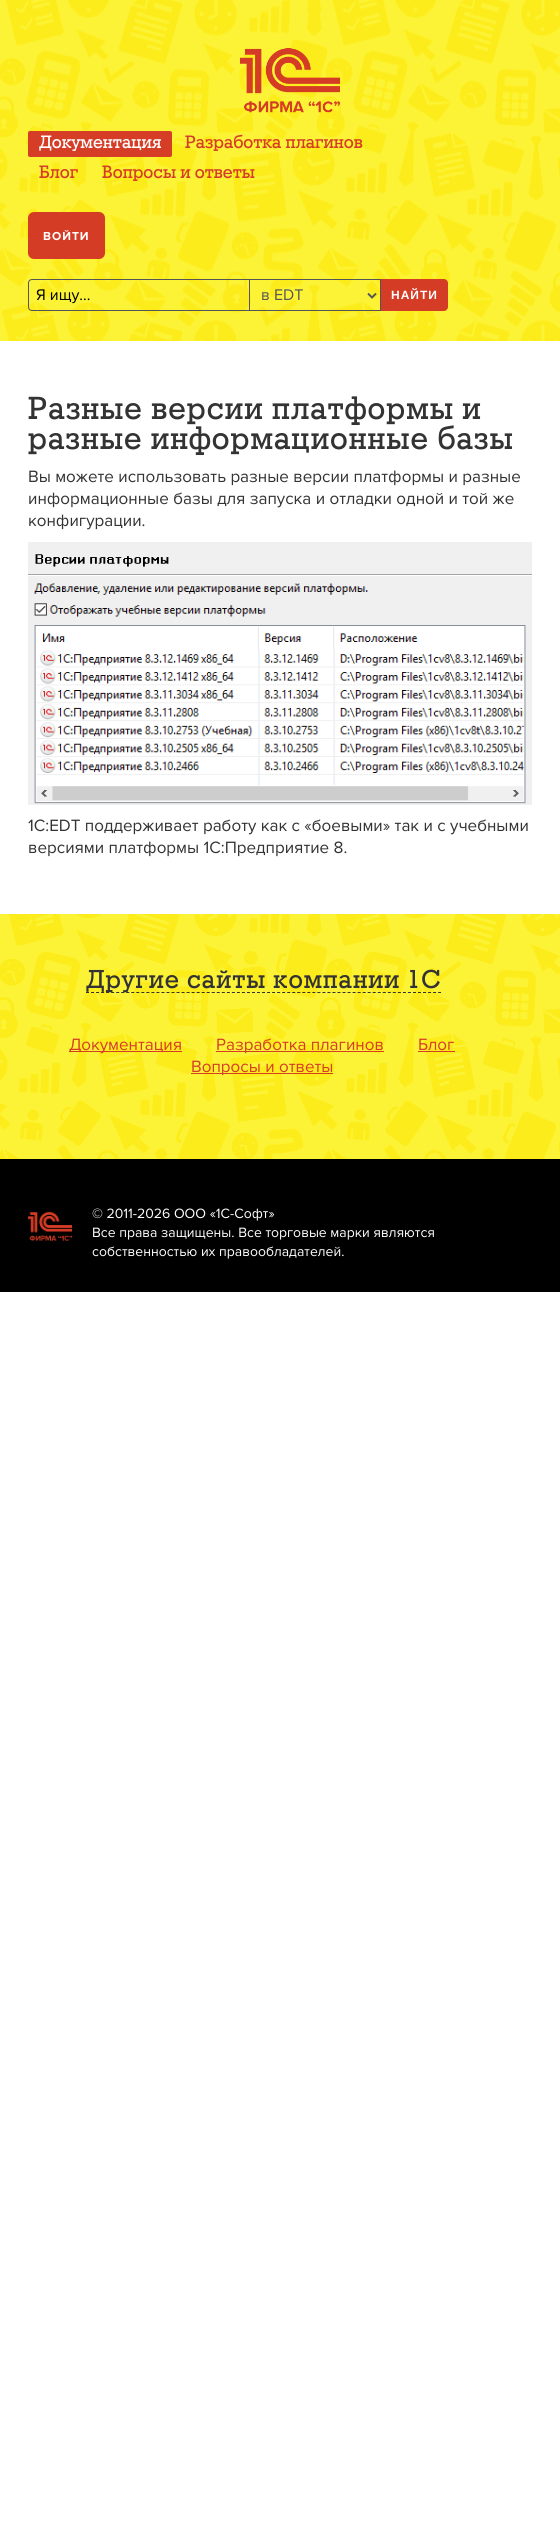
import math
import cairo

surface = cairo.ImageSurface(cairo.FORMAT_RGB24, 560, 2548)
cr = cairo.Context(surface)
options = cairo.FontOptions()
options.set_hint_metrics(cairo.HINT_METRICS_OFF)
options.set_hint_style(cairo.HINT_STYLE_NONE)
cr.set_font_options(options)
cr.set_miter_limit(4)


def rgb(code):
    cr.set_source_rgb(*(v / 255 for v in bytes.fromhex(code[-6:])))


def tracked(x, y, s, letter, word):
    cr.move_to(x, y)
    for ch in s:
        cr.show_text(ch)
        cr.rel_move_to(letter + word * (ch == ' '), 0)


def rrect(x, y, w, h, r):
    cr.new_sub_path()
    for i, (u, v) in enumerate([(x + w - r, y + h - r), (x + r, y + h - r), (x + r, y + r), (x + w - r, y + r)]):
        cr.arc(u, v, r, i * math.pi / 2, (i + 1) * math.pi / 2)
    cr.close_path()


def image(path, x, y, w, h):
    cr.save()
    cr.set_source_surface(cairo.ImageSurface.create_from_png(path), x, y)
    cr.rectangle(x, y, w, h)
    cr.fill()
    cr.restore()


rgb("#ffffff")
cr.paint()
image("img/1.png", 0, 0, 560, 341)
image("img/2.png", 240, 48, 100, 65)
rgb("#d63d26")
rrect(28.5, 131.5, 143, 25, 1.5)
cr.fill_preserve()
cr.set_line_width(1)
cr.stroke()
rgb("#d53c25")
rrect(28, 212, 77, 47, 6)
cr.fill()
cr.new_path()
cr.move_to(32, 279.5)
cr.line_to(249.5, 279.5)
cr.line_to(249.5, 310.5)
cr.line_to(32, 310.5)
cr.curve_to(30, 310.5, 28.5, 309, 28.5, 307)
cr.line_to(28.5, 283)
cr.curve_to(28.5, 281, 30, 279.5, 32, 279.5)
cr.close_path()
rgb("#555555")
cr.stroke()
for x, y, w, h, color in [
    (250, 279, 131, 1, "#555555"),
    (380, 279, 1, 32, "#555555"),
    (250, 310, 131, 1, "#555555"),
]:
    rgb(color)
    cr.rectangle(x, y, w, h)
    cr.fill()
cr.new_path()
cr.move_to(368, 293.5)
cr.line_to(372, 297.5)
cr.line_to(376, 293.5)
cr.set_line_width(2)
cr.stroke()
rgb("#d53c25")
cr.new_path()
cr.move_to(381, 279)
cr.line_to(444, 279)
cr.curve_to(446, 279, 448, 281, 448, 283)
cr.line_to(448, 307)
cr.curve_to(448, 309, 446, 311, 444, 311)
cr.line_to(381, 311)
cr.close_path()
cr.fill()
image("img/3.png", 28, 542, 504, 263)
image("img/4.png", 0, 914, 560, 245)
cr.new_path()
cr.move_to(86, 992.5)
cr.line_to(441, 992.5)
rgb("#333333")
cr.set_line_width(1)
cr.set_dash([3, 2.03])
cr.stroke()
for x, y, w, h, color in [
    (69, 1051, 113, 1, "#d63d26"),
    (216, 1051, 168, 1, "#d63d26"),
    (418, 1051, 37, 1, "#d63d26"),
    (191, 1073, 142, 1, "#d63d26"),
    (0, 1159, 560, 133, "#000000"),
]:
    rgb(color)
    cr.rectangle(x, y, w, h)
    cr.fill()
image("img/5.png", 28, 1211, 44, 30)
cr.select_font_face("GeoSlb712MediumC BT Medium")
cr.set_font_size(18)
rgb("#ffffff")
cr.move_to(39, 148)
cr.show_text("Документация")
rgb("#d63d26")
for x, y, s in [
    (185, 148, "Разработка плагинов"),
    (39, 178, "Блог"),
    (102, 178, "Вопросы и ответы"),
]:
    cr.move_to(x, y)
    cr.show_text(s)
cr.select_font_face("Proxima Nova", cairo.FONT_SLANT_NORMAL, cairo.FONT_WEIGHT_BOLD)
cr.set_font_size(12)
rgb("#ffffff")
tracked(43, 240, "ВОЙТИ", 1, 0)
cr.select_font_face("Proxima Nova")
cr.set_font_size(16)
rgb("#000000")
cr.move_to(36, 300)
cr.show_text("Я ищу...")
rgb("#555555")
cr.move_to(261, 300)
cr.show_text("в EDT")
cr.select_font_face("Liberation Sans", cairo.FONT_SLANT_NORMAL, cairo.FONT_WEIGHT_BOLD)
cr.set_font_size(12)
rgb("#ffffff")
tracked(391, 299, "НАЙТИ", 1, 0)
cr.select_font_face("GeoSlb712MediumC BT Medium")
cr.set_font_size(32)
rgb("#333333")
tracked(28, 419, "Разные версии платформы и", 1, 0)
tracked(28, 449, "разные информационные базы", 1, 0)
cr.select_font_face("Proxima Nova")
cr.set_font_size(17)
for x, y, s in [
    (28, 482, "Вы можете использовать разные версии платформы и разные"),
    (28, 504, "информационные базы для запуска и отладки одной и той же"),
    (28, 526, "конфигурации."),
    (28, 831, "1C:EDT поддерживает работу как с «боевыми» так и с учебными"),
    (28, 853, "версиями платформы 1С:Предприятие 8."),
]:
    cr.move_to(x, y)
    cr.show_text(s)
cr.select_font_face("GeoSlb712MediumC BT Medium")
cr.set_font_size(26)
tracked(86, 988, "Другие сайты компании 1С", 1, 0)
cr.select_font_face("Proxima Nova")
cr.set_font_size(17)
rgb("#d63d26")
for x, y, s in [
    (69, 1050, "Документация"),
    (216, 1050, "Разработка плагинов"),
    (418, 1050, "Блог"),
    (191, 1072, "Вопросы и ответы"),
]:
    cr.move_to(x, y)
    cr.show_text(s)
cr.set_font_size(14)
rgb("#ffffff")
for x, y, s in [
    (92, 1218, "© 2011-2026 ООО «1С-Софт»"),
    (92, 1237, "Все права защищены. Все торговые марки являются"),
    (92, 1256, "собственностью их правообладателей."),
]:
    cr.move_to(x, y)
    cr.show_text(s)
surface.write_to_png("page.png")
